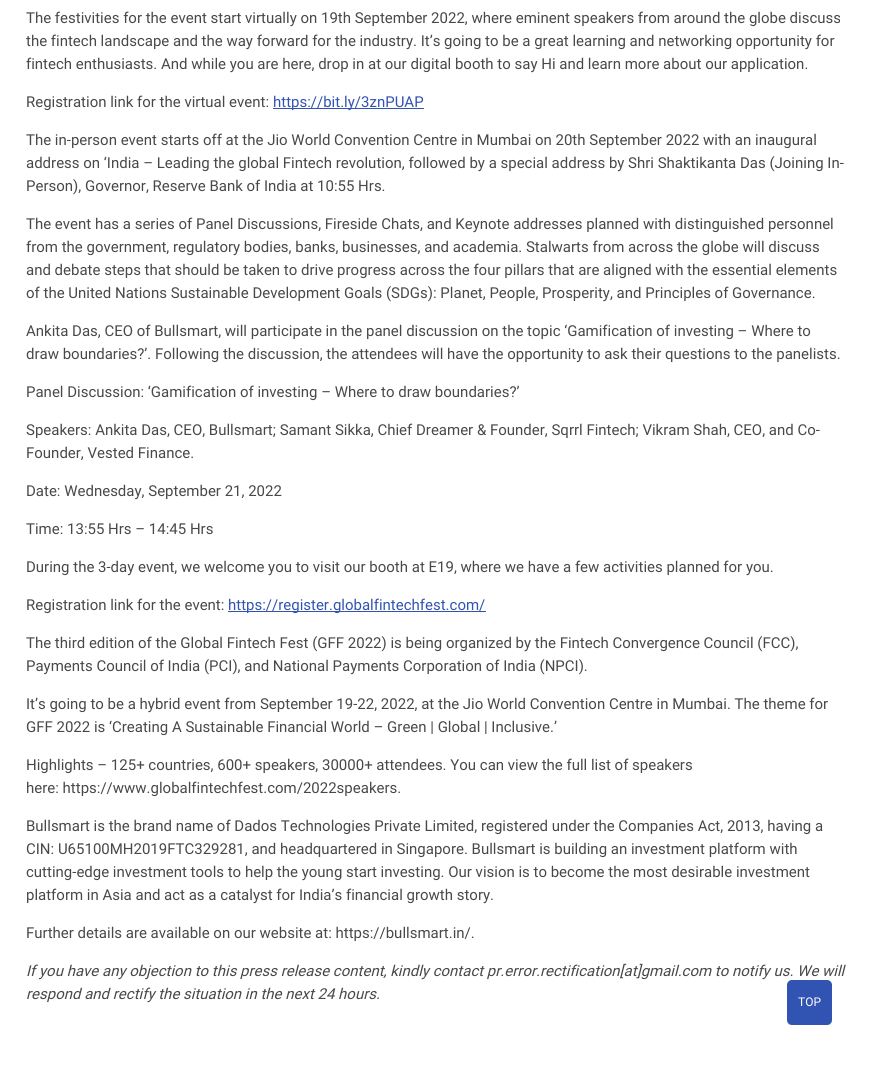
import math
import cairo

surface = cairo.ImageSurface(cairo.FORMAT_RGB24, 872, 1065)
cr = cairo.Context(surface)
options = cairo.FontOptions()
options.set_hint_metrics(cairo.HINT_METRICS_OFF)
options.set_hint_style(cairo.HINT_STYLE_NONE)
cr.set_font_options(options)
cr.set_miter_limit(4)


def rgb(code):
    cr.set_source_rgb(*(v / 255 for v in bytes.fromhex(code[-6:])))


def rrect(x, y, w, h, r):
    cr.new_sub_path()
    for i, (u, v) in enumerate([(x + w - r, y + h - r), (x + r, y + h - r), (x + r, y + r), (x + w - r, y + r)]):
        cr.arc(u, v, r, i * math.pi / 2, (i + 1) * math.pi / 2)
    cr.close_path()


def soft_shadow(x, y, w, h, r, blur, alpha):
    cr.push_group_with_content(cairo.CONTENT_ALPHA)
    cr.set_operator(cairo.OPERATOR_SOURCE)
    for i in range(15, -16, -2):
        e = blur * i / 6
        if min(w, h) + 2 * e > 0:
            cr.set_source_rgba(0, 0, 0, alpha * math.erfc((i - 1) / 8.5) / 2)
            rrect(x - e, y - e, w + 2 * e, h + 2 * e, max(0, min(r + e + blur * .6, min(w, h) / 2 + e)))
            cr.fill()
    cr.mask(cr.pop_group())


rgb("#ffffff")
cr.paint()
rgb("#3153b2")
cr.rectangle(273, 108, 151, 1)
cr.fill()
cr.rectangle(228, 611, 258, 1)
cr.fill()
cr.save()
cr.rectangle(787, 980, 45, 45)
cr.clip()
rgb("#000000")
soft_shadow(787, 982, 45, 45, 5, 1.5, 0.08)
cr.restore()
rrect(787, 980, 45, 45, 5)
cr.fill()
cr.select_font_face("Roboto")
cr.set_font_size(15)
rgb("#484848")
for x, y, s in [
    (26, 23, "The festivities for the event start virtually on 19th September 2022, where eminent speakers from around the globe discuss"),
    (26, 46, "the fintech landscape and the way forward for the industry. It’s going to be a great learning and networking opportunity for"),
    (26, 69, "fintech enthusiasts. And while you are here, drop in at our digital booth to say Hi and learn more about our application."),
    (26, 107, "Registration link for the virtual event:"),
]:
    cr.move_to(x, y)
    cr.show_text(s)
rgb("#3153b2")
cr.move_to(273, 107)
cr.show_text("https://bit.ly/3znPUAP")
rgb("#484848")
for x, y, s in [
    (26, 145, "The in-person event starts off at the Jio World Convention Centre in Mumbai on 20th September 2022 with an inaugural"),
    (26, 168, "address on ‘India – Leading the global Fintech revolution, followed by a special address by Shri Shaktikanta Das (Joining In-"),
    (26, 191, "Person), Governor, Reserve Bank of India at 10:55 Hrs."),
    (26, 229, "The event has a series of Panel Discussions, Fireside Chats, and Keynote addresses planned with distinguished personnel"),
    (26, 252, "from the government, regulatory bodies, banks, businesses, and academia. Stalwarts from across the globe will discuss"),
    (26, 275, "and debate steps that should be taken to drive progress across the four pillars that are aligned with the essential elements"),
    (26, 298, "of the United Nations Sustainable Development Goals (SDGs): Planet, People, Prosperity, and Principles of Governance."),
    (26, 336, "Ankita Das, CEO of Bullsmart, will participate in the panel discussion on the topic ‘Gamification of investing – Where to"),
    (26, 359, "draw boundaries?’. Following the discussion, the attendees will have the opportunity to ask their questions to the panelists."),
    (26, 397, "Panel Discussion: ‘Gamification of investing – Where to draw boundaries?’"),
    (26, 435, "Speakers: Ankita Das, CEO, Bullsmart; Samant Sikka, Chief Dreamer & Founder, Sqrrl Fintech; Vikram Shah, CEO, and Co-"),
    (26, 458, "Founder, Vested Finance."),
    (26, 496, "Date: Wednesday, September 21, 2022"),
    (26, 534, "Time: 13:55 Hrs – 14:45 Hrs"),
    (26, 572, "During the 3-day event, we welcome you to visit our booth at E19, where we have a few activities planned for you."),
    (26, 610, "Registration link for the event:"),
]:
    cr.move_to(x, y)
    cr.show_text(s)
rgb("#3153b2")
cr.move_to(228, 610)
cr.show_text("https://register.globalfintechfest.com/")
rgb("#484848")
for x, y, s in [
    (26, 648, "The third edition of the Global Fintech Fest (GFF 2022) is being organized by the Fintech Convergence Council (FCC),"),
    (26, 671, "Payments Council of India (PCI), and National Payments Corporation of India (NPCI)."),
    (26, 709, "It’s going to be a hybrid event from September 19-22, 2022, at the Jio World Convention Centre in Mumbai. The theme for"),
    (26, 732, "GFF 2022 is ‘Creating A Sustainable Financial World – Green | Global | Inclusive.’"),
    (26, 770, "Highlights – 125+ countries, 600+ speakers, 30000+ attendees. You can view the full list of speakers"),
    (26, 793, "here: https://www.globalfintechfest.com/2022speakers."),
    (26, 831, "Bullsmart is the brand name of Dados Technologies Private Limited, registered under the Companies Act, 2013, having a"),
    (26, 854, "CIN: U65100MH2019FTC329281, and headquartered in Singapore. Bullsmart is building an investment platform with"),
    (26, 877, "cutting-edge investment tools to help the young start investing. Our vision is to become the most desirable investment"),
    (26, 900, "platform in Asia and act as a catalyst for India’s financial growth story."),
    (26, 938, "Further details are available on our website at: https://bullsmart.in/."),
]:
    cr.move_to(x, y)
    cr.show_text(s)
cr.select_font_face("Roboto", cairo.FONT_SLANT_ITALIC)
cr.move_to(26, 976)
cr.show_text("If you have any objection to this press release content, kindly contact pr.error.rectification[at]gmail.com to notify us. We will")
cr.move_to(26, 999)
cr.show_text("respond and rectify the situation in the next 24 hours.")
cr.select_font_face("Roboto")
cr.set_font_size(12)
rgb("#ffffff")
cr.move_to(798, 1006)
cr.show_text("TOP")
surface.write_to_png("page.png")
